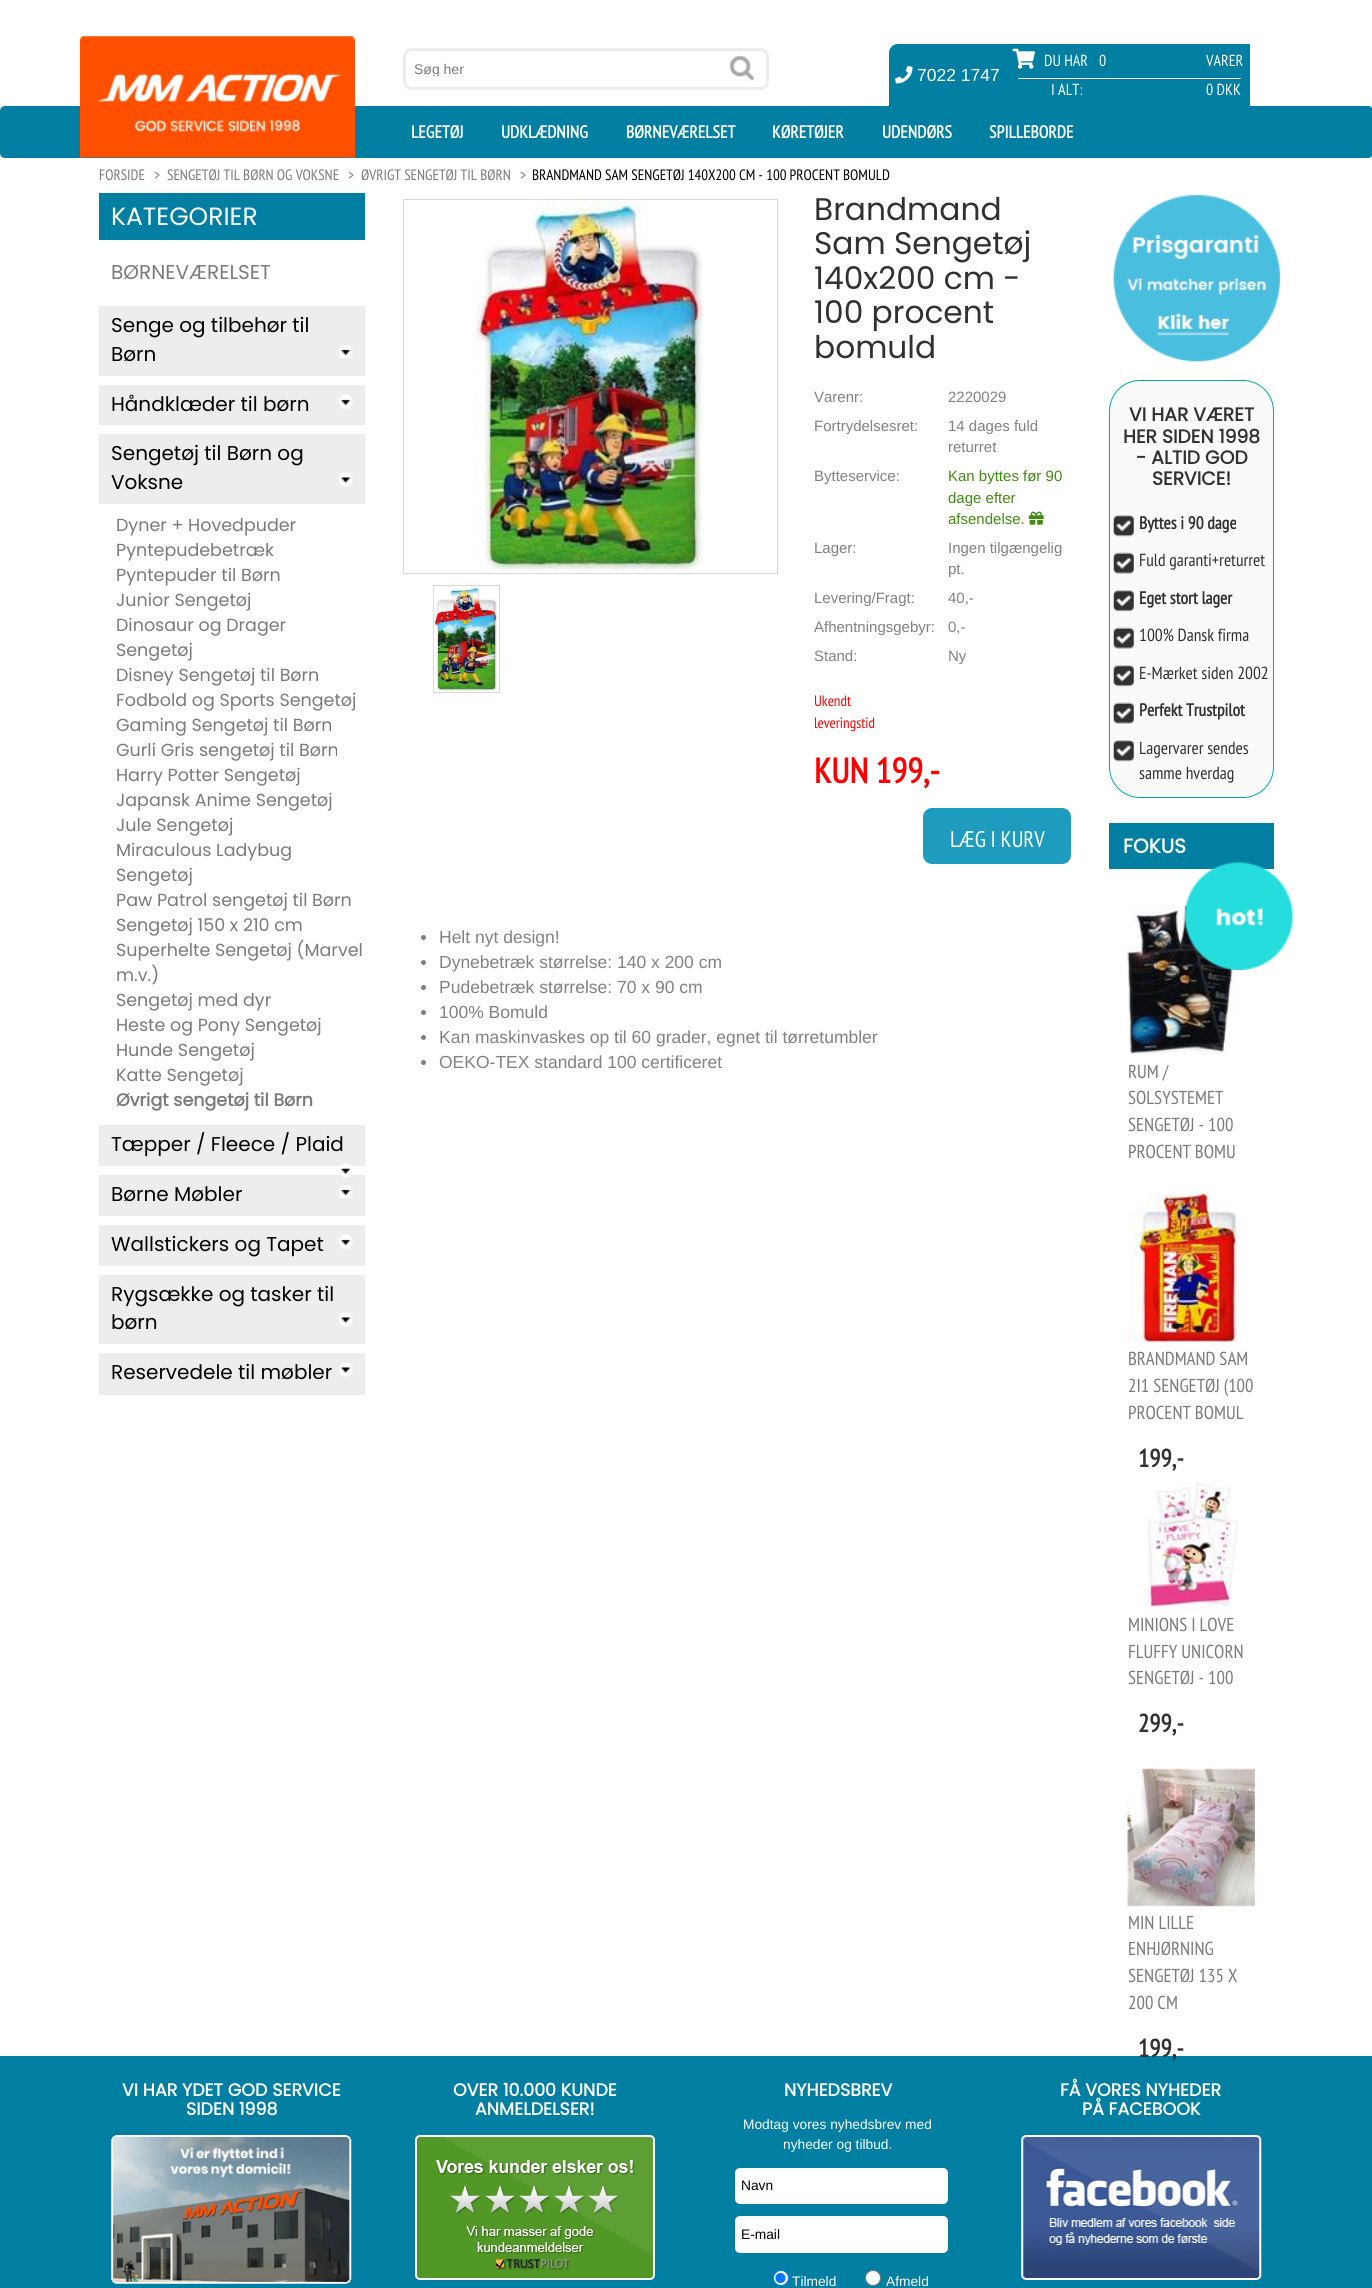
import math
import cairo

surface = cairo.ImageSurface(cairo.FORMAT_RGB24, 1372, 2288)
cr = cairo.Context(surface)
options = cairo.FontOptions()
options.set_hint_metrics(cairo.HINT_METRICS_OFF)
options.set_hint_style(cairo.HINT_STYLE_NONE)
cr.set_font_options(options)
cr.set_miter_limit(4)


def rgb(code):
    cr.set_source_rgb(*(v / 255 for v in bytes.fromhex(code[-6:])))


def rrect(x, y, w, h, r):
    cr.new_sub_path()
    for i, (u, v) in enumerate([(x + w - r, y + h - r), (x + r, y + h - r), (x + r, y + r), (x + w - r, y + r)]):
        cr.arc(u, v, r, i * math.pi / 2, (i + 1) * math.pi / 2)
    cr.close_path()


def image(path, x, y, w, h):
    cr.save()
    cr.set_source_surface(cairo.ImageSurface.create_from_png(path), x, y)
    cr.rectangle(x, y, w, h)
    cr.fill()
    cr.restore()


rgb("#ffffff")
cr.paint()
rrect(404.5, 49.5, 363, 39, 7.5)
rgb("#ededed")
cr.set_line_width(3)
cr.stroke()
image("img/1.png", 729, 55, 25, 26)
rgb("#007fa3")
cr.new_path()
cr.move_to(898, 44)
cr.line_to(1000, 44)
cr.line_to(1000, 106)
cr.line_to(889, 106)
cr.line_to(889, 53)
cr.curve_to(889, 48, 893, 44, 898, 44)
cr.close_path()
cr.fill()
image("img/2.png", 895, 66, 18, 18)
cr.rectangle(1000, 44, 250, 62)
cr.fill()
image("img/3.png", 1012, 48, 23, 21)
rgb("#ffffff")
cr.rectangle(1018, 78, 223, 1)
cr.fill()
rgb("#007fa3")
rrect(0, 106, 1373, 52, 5)
cr.fill()
image("img/4.png", 80, 36, 275, 122)
for x, y, w, h, color in [
    (99, 193, 266, 47, "#007fa3"),
    (99, 1353, 266, 42, "#ededed"),
    (99, 306, 266, 70, "#ededed"),
]:
    rgb(color)
    cr.rectangle(x, y, w, h)
    cr.fill()
image("img/5.png", 338, 345, 15, 14)
cr.rectangle(99, 385, 266, 40)
cr.fill()
image("img/5.png", 338, 395, 15, 14)
cr.rectangle(99, 434, 266, 70)
cr.fill()
image("img/6.png", 338, 472, 15, 15)
cr.rectangle(99, 1125, 266, 41)
cr.fill()
cr.rectangle(99, 1175, 266, 41)
cr.fill()
image("img/7.png", 340, 1163, 11, 15)
image("img/5.png", 338, 1185, 15, 14)
cr.rectangle(99, 1225, 266, 41)
cr.fill()
image("img/5.png", 338, 1235, 15, 14)
cr.rectangle(99, 1275, 266, 69)
cr.fill()
image("img/6.png", 338, 1312, 15, 15)
image("img/6.png", 338, 1362, 15, 15)
cr.rectangle(403.5, 199.5, 374, 374)
rgb("#d6d6d6")
cr.set_line_width(1)
cr.stroke()
image("img/8.png", 475, 200, 229, 371)
cr.rectangle(433.5, 585.5, 66, 107)
rgb("#d8d8d8")
cr.stroke()
image("img/9.png", 433, 586, 65, 105)
image("img/10.png", 1028, 511, 16, 14)
rgb("#1d9cc0")
rrect(924.5, 809.5, 145, 53, 7.5)
cr.fill_preserve()
cr.set_line_width(3)
cr.stroke()
rgb("#818181")
cr.arc(423.5, 937.5, 2.5, 0, 2 * math.pi)
cr.fill()
cr.arc(423.5, 962.5, 2.5, 0, 2 * math.pi)
cr.fill()
cr.arc(423.5, 987.5, 2.5, 0, 2 * math.pi)
cr.fill()
cr.arc(423.5, 1012.5, 2.5, 0, 2 * math.pi)
cr.fill()
cr.arc(423.5, 1037.5, 2.5, 0, 2 * math.pi)
cr.fill()
cr.arc(423.5, 1062.5, 2.5, 0, 2 * math.pi)
cr.fill()
image("img/11.png", 1113, 194, 168, 168)
rgb("#fafafa")
rrect(1109.5, 380.5, 164, 417, 30.5)
cr.fill_preserve()
rgb("#00a7b5")
cr.set_line_width(1)
cr.stroke()
image("img/12.png", 1113, 515, 21, 22)
image("img/13.png", 1113, 552, 21, 22)
image("img/12.png", 1113, 590, 21, 22)
image("img/13.png", 1113, 627, 21, 22)
image("img/12.png", 1113, 665, 21, 22)
image("img/13.png", 1113, 702, 21, 22)
image("img/12.png", 1113, 740, 21, 22)
rgb("#007fa3")
cr.rectangle(1109, 823, 165, 46)
cr.fill()
image("img/14.png", 1127, 906, 109, 149)
image("img/15.png", 1185, 862, 108, 108)
image("img/16.png", 1127, 1193, 121, 150)
image("img/17.png", 1144, 1482, 94, 127)
image("img/18.png", 1127, 1768, 128, 139)
cr.rectangle(0, 2056, 1372, 232)
cr.fill()
image("img/19.png", 111, 2135, 241, 149)
image("img/20.png", 415, 2135, 240, 145)
rgb("#ffffff")
rrect(735, 2168, 213, 36, 5)
cr.fill()
rrect(735, 2216, 213, 37, 5)
cr.fill()
cr.arc(781, 2278, 7.5, 0, 2 * math.pi)
cr.fill_preserve()
rgb("#0075ff")
cr.stroke()
cr.arc(780.5, 2278, 5, 0, 2 * math.pi)
cr.fill()
rgb("#ffffff")
cr.arc(873, 2278, 7.5, 0, 2 * math.pi)
cr.fill_preserve()
rgb("#767676")
cr.stroke()
image("img/21.png", 1021, 2135, 241, 145)
cr.save()
cr.rectangle(415, 61, 349, 15)
cr.clip()
cr.select_font_face("Liberation Sans")
cr.set_font_size(14)
rgb("#7a7a7a")
cr.move_to(414, 74)
cr.show_text("Søg her")
cr.restore()
cr.select_font_face("Liberation Sans")
cr.set_font_size(17.5)
rgb("#ffffff")
cr.move_to(917, 81)
cr.show_text("7022 1747")
cr.select_font_face("PT Sans Narrow")
cr.set_font_size(16)
for x, y, s in [
    (1044, 66, "DU HAR"),
    (1099, 66, "0"),
    (1206, 66, "VARER"),
    (1051, 95, "I ALT:"),
    (1206, 95, "0 DKK"),
]:
    cr.move_to(x, y)
    cr.show_text(s)
cr.select_font_face("PT Sans Narrow", cairo.FONT_SLANT_NORMAL, cairo.FONT_WEIGHT_BOLD)
cr.set_font_size(17.5)
for x, y, s in [
    (411, 138, "LEGETØJ"),
    (501, 138, "UDKLÆDNING"),
    (626, 138, "BØRNEVÆRELSET"),
    (772, 138, "KØRETØJER"),
    (882, 138, "UDENDØRS"),
    (989, 138, "SPILLEBORDE"),
]:
    cr.move_to(x, y)
    cr.show_text(s)
cr.select_font_face("PT Sans Narrow")
cr.set_font_size(15)
rgb("#7a7a7a")
for x, y, s in [
    (99, 180, "FORSIDE"),
    (154, 180, ">"),
    (167, 180, "SENGETØJ TIL BØRN OG VOKSNE"),
    (348, 180, ">"),
    (361, 180, "ØVRIGT SENGETØJ TIL BØRN"),
    (520, 180, ">"),
]:
    cr.move_to(x, y)
    cr.show_text(s)
rgb("#000000")
cr.move_to(532, 180)
cr.show_text("BRANDMAND SAM SENGETØJ 140X200 CM - 100 PROCENT BOMULD")
cr.select_font_face("Poppins")
cr.set_font_size(25)
rgb("#ffffff")
cr.move_to(111, 225)
cr.show_text("KATEGORIER")
cr.set_font_size(20)
rgb("#7a7a7a")
cr.move_to(111, 279)
cr.show_text("BØRNEVÆRELSET")
rgb("#000000")
for x, y, s in [
    (111, 332, "Senge og tilbehør til"),
    (111, 361, "Børn"),
    (111, 411, "Håndklæder til børn"),
    (111, 460, "Sengetøj til Børn og"),
    (111, 489, "Voksne"),
]:
    cr.move_to(x, y)
    cr.show_text(s)
cr.set_font_size(17.5)
rgb("#7a7a7a")
for x, y, s in [
    (116, 531, "Dyner + Hovedpuder"),
    (116, 556, "Pyntepudebetræk"),
    (116, 581, "Pyntepuder til Børn"),
    (116, 606, "Junior Sengetøj"),
    (116, 631, "Dinosaur og Drager"),
    (116, 656, "Sengetøj"),
    (116, 681, "Disney Sengetøj til Børn"),
    (116, 706, "Fodbold og Sports Sengetøj"),
    (116, 731, "Gaming Sengetøj til Børn"),
    (116, 756, "Gurli Gris sengetøj til Børn"),
    (116, 781, "Harry Potter Sengetøj"),
    (116, 806, "Japansk Anime Sengetøj"),
    (116, 831, "Jule Sengetøj"),
    (116, 856, "Miraculous Ladybug"),
    (116, 881, "Sengetøj"),
    (116, 906, "Paw Patrol sengetøj til Børn"),
    (116, 931, "Sengetøj 150 x 210 cm"),
    (116, 956, "Superhelte Sengetøj (Marvel"),
    (116, 981, "m.v.)"),
    (116, 1006, "Sengetøj med dyr"),
    (116, 1031, "Heste og Pony Sengetøj"),
    (116, 1056, "Hunde Sengetøj"),
    (116, 1081, "Katte Sengetøj"),
]:
    cr.move_to(x, y)
    cr.show_text(s)
cr.select_font_face("Poppins", cairo.FONT_SLANT_NORMAL, cairo.FONT_WEIGHT_BOLD)
cr.move_to(116, 1106)
cr.show_text("Øvrigt sengetøj til Børn")
cr.select_font_face("Poppins")
cr.set_font_size(20)
rgb("#000000")
for x, y, s in [
    (111, 1151, "Tæpper / Fleece / Plaid"),
    (111, 1201, "Børne Møbler"),
    (111, 1251, "Wallstickers og Tapet"),
    (111, 1301, "Rygsække og tasker til"),
    (111, 1329, "børn"),
    (111, 1379, "Reservedele til møbler"),
]:
    cr.move_to(x, y)
    cr.show_text(s)
cr.set_font_size(31.25)
rgb("#313131")
for x, y, s in [
    (814, 220, "Brandmand"),
    (814, 254, "Sam Sengetøj"),
    (814, 289, "140x200 cm -"),
    (814, 323, "100 procent"),
    (814, 358, "bomuld"),
]:
    cr.move_to(x, y)
    cr.show_text(s)
cr.select_font_face("Liberation Sans")
cr.set_font_size(15)
rgb("#818181")
for x, y, s in [
    (814, 402, "Varenr:"),
    (948, 402, "2220029"),
    (814, 431, "Fortrydelsesret:"),
    (948, 431, "14 dages fuld"),
    (948, 452, "returret"),
    (814, 481, "Bytteservice:"),
]:
    cr.move_to(x, y)
    cr.show_text(s)
rgb("#428a12")
for x, y, s in [
    (948, 481, "Kan byttes før 90"),
    (948, 503, "dage efter"),
    (948, 524, "afsendelse."),
]:
    cr.move_to(x, y)
    cr.show_text(s)
rgb("#818181")
for x, y, s in [
    (814, 553, "Lager:"),
    (948, 553, "Ingen tilgængelig"),
    (948, 574, "pt."),
    (814, 603, "Levering/Fragt:"),
    (948, 603, "40,-"),
    (814, 632, "Afhentningsgebyr:"),
    (948, 632, "0,-"),
    (814, 661, "Stand:"),
    (948, 661, "Ny"),
]:
    cr.move_to(x, y)
    cr.show_text(s)
cr.select_font_face("PT Sans Narrow")
rgb("#ff0000")
cr.move_to(814, 706)
cr.show_text("Ukendt")
cr.move_to(814, 728)
cr.show_text("leveringstid")
cr.select_font_face("PT Sans Narrow", cairo.FONT_SLANT_NORMAL, cairo.FONT_WEIGHT_BOLD)
cr.set_font_size(35)
cr.move_to(814, 783)
cr.show_text("KUN 199,-")
cr.select_font_face("PT Sans Narrow")
cr.set_font_size(22.5)
rgb("#ffffff")
cr.move_to(950, 847)
cr.show_text("LÆG I KURV")
cr.select_font_face("Liberation Sans")
cr.set_font_size(17.5)
rgb("#818181")
for x, y, s in [
    (439, 943, "Helt nyt design!"),
    (439, 968, "Dynebetræk størrelse: 140 x 200 cm"),
    (439, 993, "Pudebetræk størrelse: 70 x 90 cm"),
    (439, 1018, "100% Bomuld"),
    (439, 1043, "Kan maskinvaskes op til 60 grader, egnet til tørretumbler"),
    (439, 1068, "OEKO-TEX standard 100 certificeret"),
]:
    cr.move_to(x, y)
    cr.show_text(s)
cr.select_font_face("Poppins", cairo.FONT_SLANT_NORMAL, cairo.FONT_WEIGHT_BOLD)
cr.set_font_size(18.75)
rgb("#313131")
for x, y, s in [
    (1129, 421, "VI HAR VÆRET"),
    (1123, 443, "HER SIDEN 1998"),
    (1136, 464, "- ALTID GOD"),
    (1152, 485, "SERVICE!"),
]:
    cr.move_to(x, y)
    cr.show_text(s)
cr.select_font_face("PT Sans Narrow", cairo.FONT_SLANT_NORMAL, cairo.FONT_WEIGHT_BOLD)
cr.set_font_size(17.5)
cr.move_to(1139, 529)
cr.show_text("Byttes i 90 dage")
cr.select_font_face("PT Sans Narrow")
cr.move_to(1139, 566)
cr.show_text("Fuld garanti+returret")
cr.select_font_face("PT Sans Narrow", cairo.FONT_SLANT_NORMAL, cairo.FONT_WEIGHT_BOLD)
cr.move_to(1139, 604)
cr.show_text("Eget stort lager")
cr.select_font_face("PT Sans Narrow")
cr.move_to(1139, 641)
cr.show_text("100% Dansk firma")
cr.move_to(1139, 679)
cr.show_text("E-Mærket siden 2002")
cr.select_font_face("PT Sans Narrow", cairo.FONT_SLANT_NORMAL, cairo.FONT_WEIGHT_BOLD)
cr.move_to(1139, 716)
cr.show_text("Perfekt Trustpilot")
cr.select_font_face("PT Sans Narrow")
cr.move_to(1139, 754)
cr.show_text("Lagervarer sendes")
cr.move_to(1139, 779)
cr.show_text("samme hverdag")
cr.select_font_face("Poppins", cairo.FONT_SLANT_NORMAL, cairo.FONT_WEIGHT_BOLD)
cr.set_font_size(20)
rgb("#ffffff")
cr.move_to(1123, 853)
cr.show_text("FOKUS")
cr.select_font_face("PT Sans Narrow")
cr.set_font_size(18.75)
rgb("#7a7a7a")
for x, y, s in [
    (1128, 1078, "RUM /"),
    (1128, 1104, "SOLSYSTEMET"),
    (1128, 1131, "SENGETØJ - 100"),
    (1128, 1158, "PROCENT BOMU"),
    (1128, 1365, "BRANDMAND SAM"),
    (1128, 1392, "2I1 SENGETØJ (100"),
    (1128, 1419, "PROCENT BOMUL"),
]:
    cr.move_to(x, y)
    cr.show_text(s)
cr.select_font_face("PT Sans Narrow", cairo.FONT_SLANT_NORMAL, cairo.FONT_WEIGHT_BOLD)
cr.set_font_size(25)
rgb("#313131")
cr.move_to(1138, 1467)
cr.show_text("199,-")
cr.select_font_face("PT Sans Narrow")
cr.set_font_size(18.75)
rgb("#7a7a7a")
for x, y, s in [
    (1128, 1631, "MINIONS I LOVE"),
    (1128, 1658, "FLUFFY UNICORN"),
    (1128, 1684, "SENGETØJ - 100"),
]:
    cr.move_to(x, y)
    cr.show_text(s)
cr.select_font_face("PT Sans Narrow", cairo.FONT_SLANT_NORMAL, cairo.FONT_WEIGHT_BOLD)
cr.set_font_size(25)
rgb("#313131")
cr.move_to(1138, 1732)
cr.show_text("299,-")
cr.select_font_face("PT Sans Narrow")
cr.set_font_size(18.75)
rgb("#7a7a7a")
for x, y, s in [
    (1128, 1929, "MIN LILLE"),
    (1128, 1955, "ENHJØRNING"),
    (1128, 1982, "SENGETØJ 135 X"),
    (1128, 2009, "200 CM"),
]:
    cr.move_to(x, y)
    cr.show_text(s)
cr.select_font_face("PT Sans Narrow", cairo.FONT_SLANT_NORMAL, cairo.FONT_WEIGHT_BOLD)
cr.set_font_size(25)
rgb("#313131")
cr.move_to(1138, 2057)
cr.show_text("199,-")
cr.select_font_face("Poppins", cairo.FONT_SLANT_NORMAL, cairo.FONT_WEIGHT_BOLD)
cr.set_font_size(17.5)
rgb("#ffffff")
for x, y, s in [
    (122, 2096, "VI HAR YDET GOD SERVICE"),
    (186, 2115, "SIDEN 1998"),
    (453, 2096, "OVER 10.000 KUNDE"),
    (475, 2115, "ANMELDELSER!"),
    (784, 2096, "NYHEDSBREV"),
]:
    cr.move_to(x, y)
    cr.show_text(s)
cr.select_font_face("Liberation Sans")
cr.set_font_size(13.75)
cr.move_to(743, 2129)
cr.show_text("Modtag vores nyhedsbrev med")
cr.move_to(783, 2149)
cr.show_text("nyheder og tilbud.")
rgb("#000000")
cr.move_to(741, 2190)
cr.show_text("Navn")
cr.move_to(741, 2239)
cr.show_text("E-mail")
rgb("#ffffff")
cr.move_to(792, 2286)
cr.show_text("Tilmeld")
cr.move_to(886, 2286)
cr.show_text("Afmeld")
cr.select_font_face("Poppins", cairo.FONT_SLANT_NORMAL, cairo.FONT_WEIGHT_BOLD)
cr.set_font_size(17.5)
cr.move_to(1060, 2096)
cr.show_text("FÅ VORES NYHEDER")
cr.move_to(1082, 2115)
cr.show_text("PÅ FACEBOOK")
surface.write_to_png("page.png")
